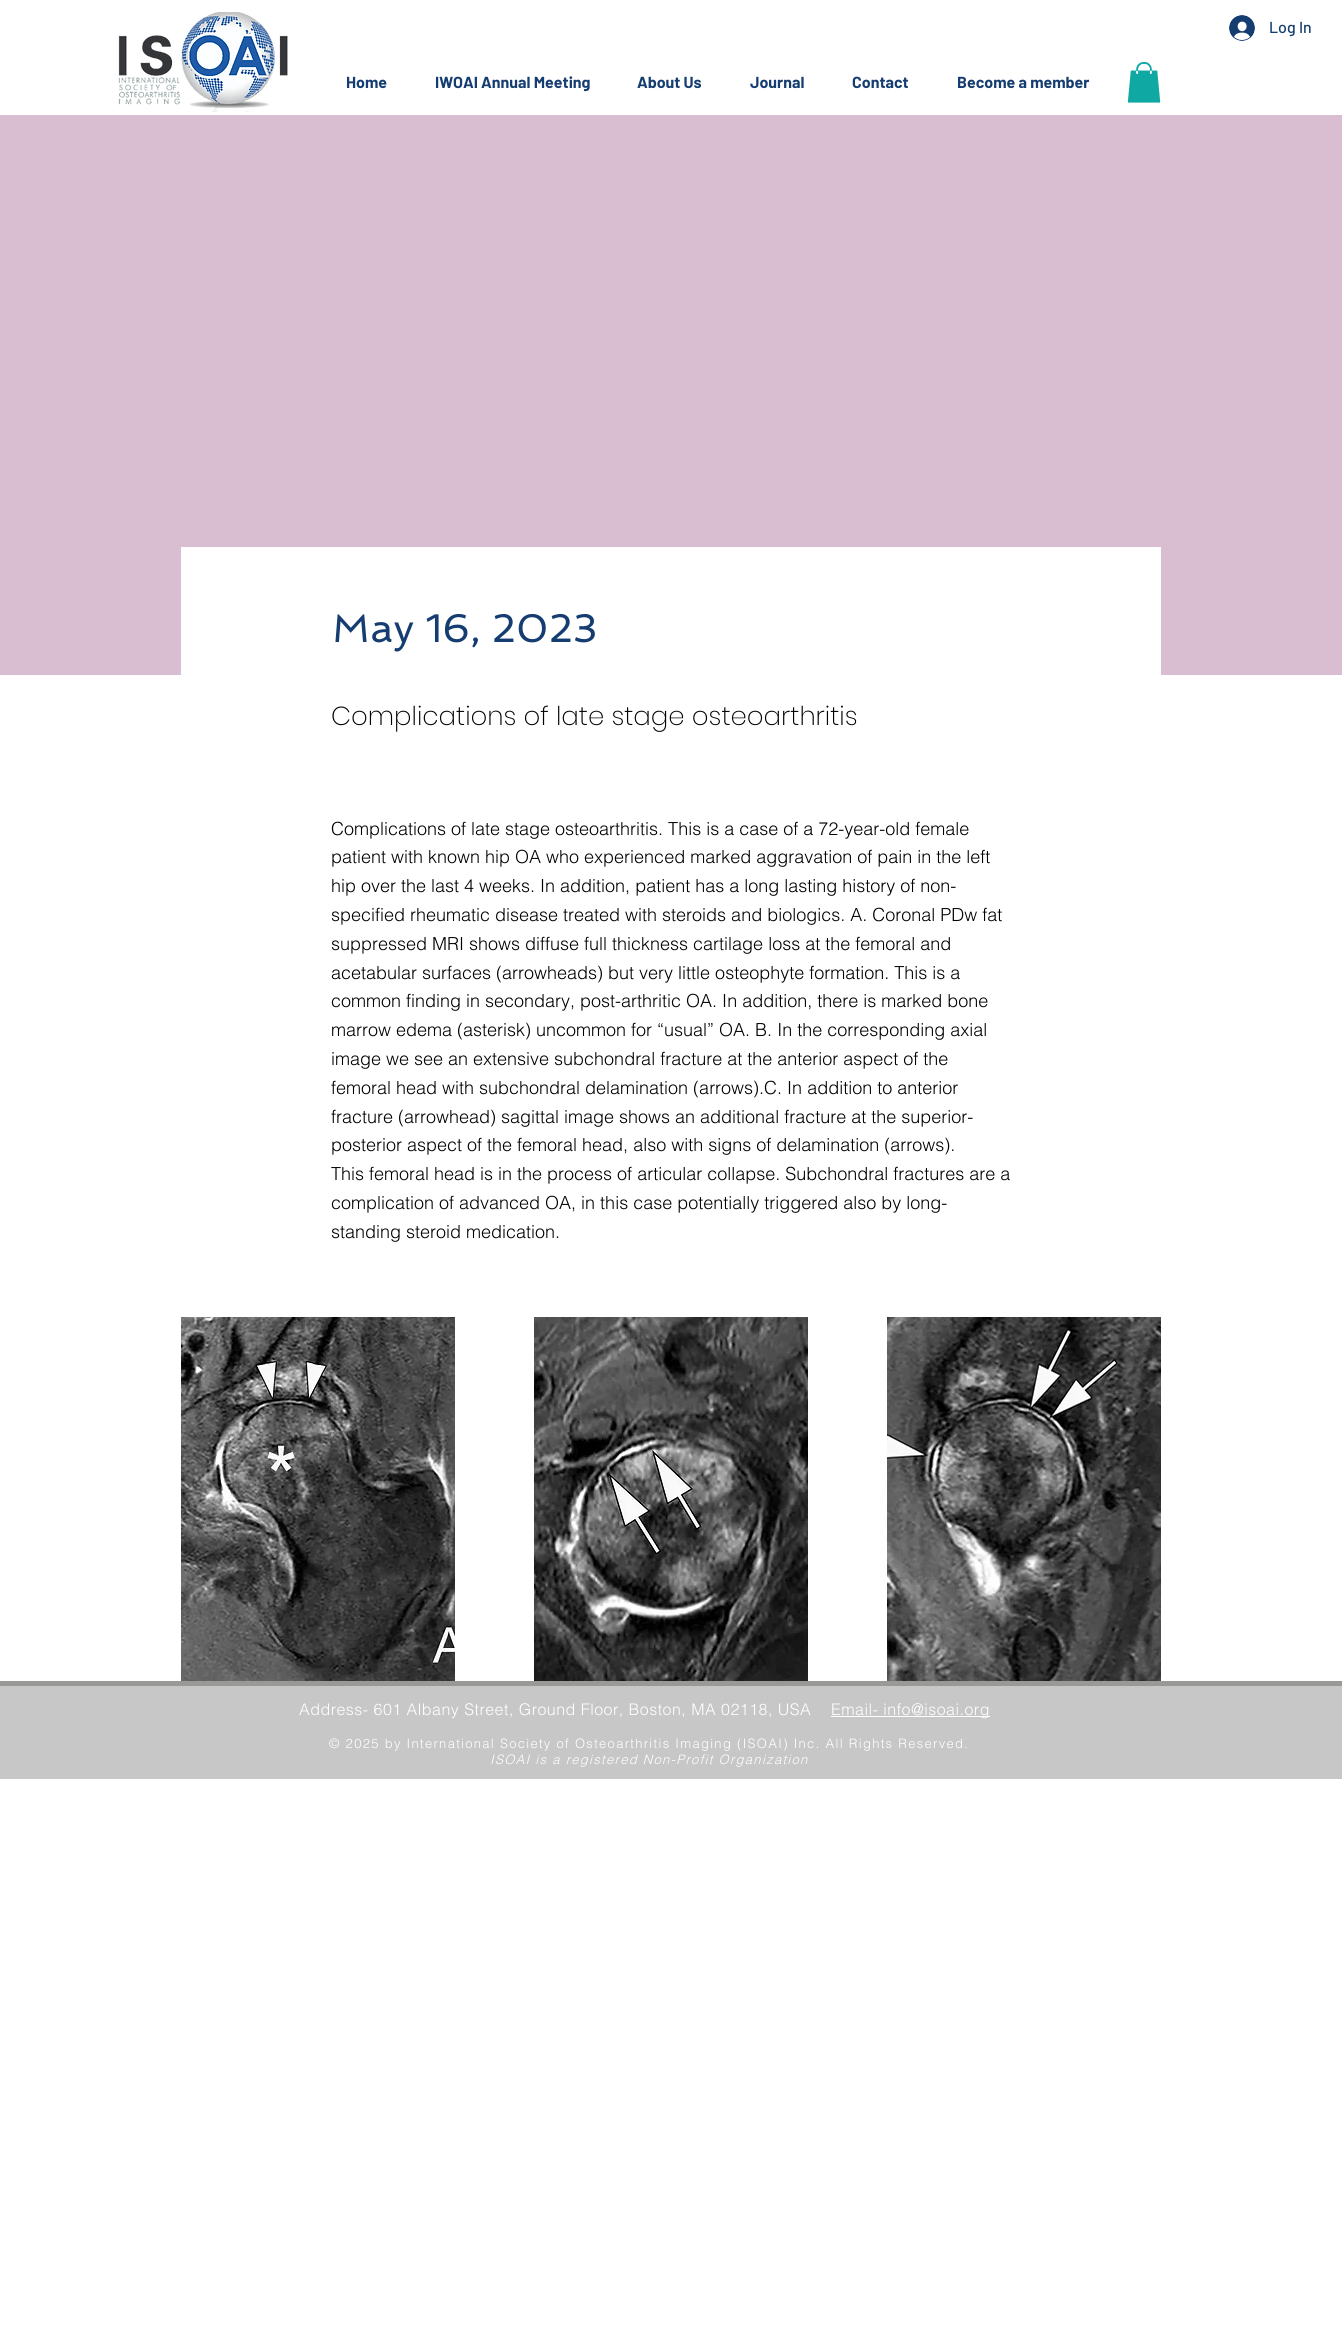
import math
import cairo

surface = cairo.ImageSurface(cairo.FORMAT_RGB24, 1342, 2351)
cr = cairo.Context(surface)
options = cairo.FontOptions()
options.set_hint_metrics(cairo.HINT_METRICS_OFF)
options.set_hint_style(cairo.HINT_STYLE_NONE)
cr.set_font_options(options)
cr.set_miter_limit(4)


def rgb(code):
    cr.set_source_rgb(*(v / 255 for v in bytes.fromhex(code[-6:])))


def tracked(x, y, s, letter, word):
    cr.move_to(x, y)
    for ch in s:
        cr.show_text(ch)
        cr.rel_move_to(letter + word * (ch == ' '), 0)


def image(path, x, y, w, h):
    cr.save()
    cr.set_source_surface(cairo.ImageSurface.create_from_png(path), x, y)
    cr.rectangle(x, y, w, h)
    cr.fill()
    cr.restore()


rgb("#ffffff")
cr.paint()
image("img/1.png", 118, 12, 170, 100)
image("img/2.png", 1229, 15, 26, 26)
image("img/3.png", 1127, 62, 34, 41)
rgb("#d8bed0")
cr.rectangle(0, 115, 1342, 560)
cr.fill()
rgb("#ffffff")
cr.rectangle(181, 547, 980, 128)
cr.fill()
image("img/4.png", 181, 1317, 274, 364)
image("img/5.png", 534, 1317, 274, 364)
image("img/6.png", 887, 1317, 274, 364)
for x, y, w, h, color in [
    (0, 1686, 1342, 93, "#c7c7c7"),
    (0, 1681, 1342, 5, "#999997"),
    (831, 1716, 159, 1, "#ffffff"),
]:
    rgb(color)
    cr.rectangle(x, y, w, h)
    cr.fill()
cr.select_font_face("Barlow Medium")
cr.set_font_size(16)
rgb("#153d71")
cr.move_to(1269, 33)
cr.show_text("Log In")
cr.select_font_face("Barlow", cairo.FONT_SLANT_NORMAL, cairo.FONT_WEIGHT_BOLD)
for x, y, s in [
    (346, 88, "Home"),
    (435, 88, "IWOAI Annual Meeting"),
    (637, 88, "About Us"),
    (750, 88, "Journal"),
    (852, 88, "Contact"),
    (957, 88, "Become a member"),
]:
    cr.move_to(x, y)
    cr.show_text(s)
cr.select_font_face("Spinnaker")
cr.set_font_size(40)
cr.move_to(332, 642)
cr.show_text("May 16, 2023")
cr.select_font_face("Poppins ExtraLight")
cr.set_font_size(26)
rgb("#000000")
cr.move_to(331, 725)
cr.show_text("Complications of late stage osteoarthritis")
cr.select_font_face("helvetica Light")
cr.set_font_size(18)
for x, y, s in [
    (331, 835, "Complications of late stage osteoarthritis. This is a case of a 72-year-old female"),
    (331, 863, "patient with known hip OA who experienced marked aggravation of pain in the left"),
    (331, 892, "hip over the last 4 weeks. In addition, patient has a long lasting history of non-"),
    (331, 921, "specified rheumatic disease treated with steroids and biologics. A. Coronal PDw fat"),
    (331, 950, "suppressed MRI shows diffuse full thickness cartilage loss at the femoral and"),
    (331, 979, "acetabular surfaces (arrowheads) but very little osteophyte formation. This is a"),
    (331, 1007, "common finding in secondary, post-arthritic OA. In addition, there is marked bone"),
    (331, 1036, "marrow edema (asterisk) uncommon for “usual” OA. B. In the corresponding axial"),
    (331, 1065, "image we see an extensive subchondral fracture at the anterior aspect of the"),
    (331, 1094, "femoral head with subchondral delamination (arrows).C. In addition to anterior"),
    (331, 1123, "fracture (arrowhead) sagittal image shows an additional fracture at the superior-"),
    (331, 1151, "posterior aspect of the femoral head, also with signs of delamination (arrows)."),
    (331, 1180, "This femoral head is in the process of articular collapse. Subchondral fractures are a"),
    (331, 1209, "complication of advanced OA, in this case potentially triggered also by long-"),
    (331, 1238, "standing steroid medication."),
]:
    cr.move_to(x, y)
    cr.show_text(s)
cr.set_font_size(16)
rgb("#ffffff")
tracked(299, 1715, "Address- 601 Albany Street, Ground Floor, Boston, MA 02118, USA", 0.48, 0)
tracked(831, 1715, "Email- info@isoai.org", 0.48, 0)
cr.set_font_size(13)
tracked(329, 1748, "© 2025 by International Society of Osteoarthritis Imaging (ISOAI) Inc. All Rights Reserved.", 1.3, 0)
cr.select_font_face("helvetica Light", cairo.FONT_SLANT_ITALIC)
tracked(490, 1764, "ISOAI is a registered Non-Profit Organization", 1.3, 0)
surface.write_to_png("page.png")
